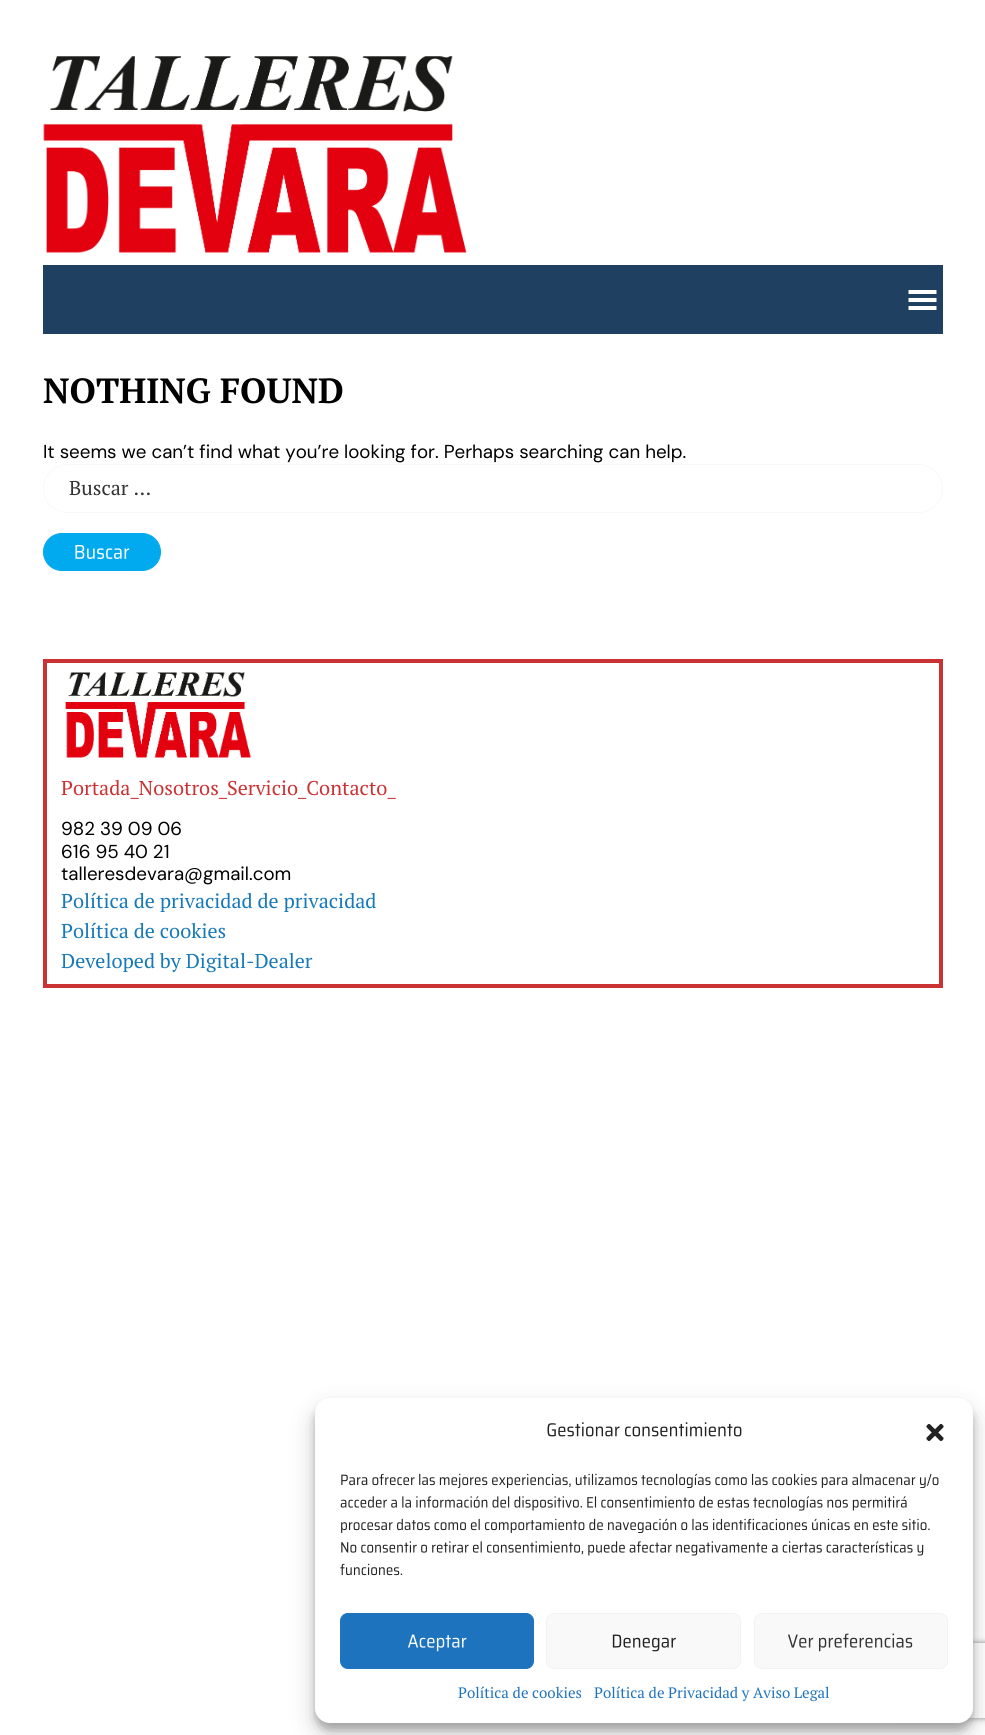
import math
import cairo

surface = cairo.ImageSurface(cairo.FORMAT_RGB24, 985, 1735)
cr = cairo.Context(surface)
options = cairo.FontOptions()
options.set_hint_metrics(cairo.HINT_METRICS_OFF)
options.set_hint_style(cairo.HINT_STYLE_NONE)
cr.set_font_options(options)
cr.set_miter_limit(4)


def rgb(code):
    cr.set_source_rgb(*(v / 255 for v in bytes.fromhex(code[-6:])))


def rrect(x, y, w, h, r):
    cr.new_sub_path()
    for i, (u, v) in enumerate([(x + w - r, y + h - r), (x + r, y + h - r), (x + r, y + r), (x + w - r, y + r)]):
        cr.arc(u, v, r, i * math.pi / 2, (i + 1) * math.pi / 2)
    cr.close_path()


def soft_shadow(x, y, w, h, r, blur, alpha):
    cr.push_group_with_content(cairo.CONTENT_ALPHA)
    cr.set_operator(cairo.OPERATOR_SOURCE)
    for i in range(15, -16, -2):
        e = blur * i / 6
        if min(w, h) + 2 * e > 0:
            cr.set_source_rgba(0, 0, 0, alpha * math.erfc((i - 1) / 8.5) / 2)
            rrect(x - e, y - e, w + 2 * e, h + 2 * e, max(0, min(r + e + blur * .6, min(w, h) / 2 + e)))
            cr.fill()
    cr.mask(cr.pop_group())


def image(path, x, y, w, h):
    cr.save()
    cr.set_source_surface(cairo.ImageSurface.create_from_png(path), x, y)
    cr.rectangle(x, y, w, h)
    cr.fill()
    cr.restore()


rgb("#ffffff")
cr.paint()
image("img/1.png", 43, 56, 424, 197)
rgb("#1f4061")
cr.rectangle(43, 265, 900, 69)
cr.fill()
image("img/2.png", 908, 290, 29, 20)
rrect(43.5, 464.5, 899, 48, 24)
rgb("#f9f9f9")
cr.set_line_width(1)
cr.stroke()
rgb("#01aaef")
rrect(43.5, 533.5, 117, 37, 18.5)
cr.fill_preserve()
cr.stroke()
image("img/3.png", 75, 545, 55, 14)
cr.rectangle(45, 661, 896, 325)
rgb("#cb3234")
cr.set_line_width(4)
cr.stroke()
image("img/4.png", 65, 672, 187, 86)
rgb("#000000")
soft_shadow(315, 1405, 658, 325, 15, 4, 0.23)
soft_shadow(315, 1410, 658, 325, 15, 12.5, 0.19)
cr.save()
cr.set_fill_rule(cairo.FILL_RULE_EVEN_ODD)
cr.new_path()
cr.move_to(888, 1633)
cr.line_to(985, 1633)
cr.line_to(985, 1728)
cr.line_to(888, 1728)
cr.close_path()
cr.move_to(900.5, 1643)
cr.line_to(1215.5, 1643)
cr.curve_to(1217, 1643, 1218, 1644, 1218, 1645.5)
cr.line_to(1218, 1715.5)
cr.curve_to(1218, 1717, 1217, 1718, 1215.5, 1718)
cr.line_to(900.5, 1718)
cr.curve_to(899, 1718, 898, 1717, 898, 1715.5)
cr.line_to(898, 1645.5)
cr.curve_to(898, 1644, 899, 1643, 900.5, 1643)
cr.close_path()
cr.clip()
rgb("#808080")
soft_shadow(898, 1643, 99, 75, 2.5, 3, 1)
cr.restore()
rgb("#ffffff")
rrect(315, 1398, 658, 325, 15)
cr.fill()
image("img/5.png", 547, 1422, 195, 15)
image("img/6.png", 926, 1423, 18, 18)
image("img/7.png", 341, 1473, 598, 16)
image("img/8.png", 340, 1496, 567, 15)
image("img/9.png", 341, 1518, 589, 16)
image("img/10.png", 341, 1541, 583, 15)
image("img/11.png", 340, 1563, 63, 13)
rgb("#1e73be")
rrect(340.5, 1613.5, 193, 55, 7.5)
cr.fill_preserve()
cr.set_line_width(1)
cr.stroke()
image("img/12.png", 408, 1634, 59, 18)
rgb("#f9f9f9")
rrect(546.5, 1613.5, 194, 55, 7.5)
cr.fill_preserve()
rgb("#f2f2f2")
cr.stroke()
image("img/13.png", 612, 1634, 64, 18)
rgb("#f9f9f9")
rrect(754.5, 1613.5, 193, 55, 7.5)
cr.fill_preserve()
rgb("#f2f2f2")
cr.stroke()
image("img/14.png", 788, 1633, 125, 19)
cr.select_font_face("PT Serif", cairo.FONT_SLANT_NORMAL, cairo.FONT_WEIGHT_BOLD)
cr.set_font_size(35)
rgb("#000000")
cr.move_to(43, 403)
cr.show_text("NOTHING FOUND")
cr.select_font_face("DM Sans")
cr.set_font_size(18.75)
cr.move_to(43, 458)
cr.show_text("It seems we can’t find what you’re looking for. Perhaps searching can help.")
cr.select_font_face("PT Serif")
cr.set_font_size(20)
rgb("#333333")
cr.move_to(69, 495)
cr.show_text("Buscar …")
rgb("#cb3234")
cr.move_to(61, 795)
cr.show_text("Portada_Nosotros_Servicio_Contacto_")
cr.select_font_face("DM Sans")
cr.set_font_size(18.75)
rgb("#000000")
for x, y, s in [
    (61, 835, "982 39 09 06"),
    (61, 858, "616 95 40 21"),
    (61, 880, "talleresdevara@gmail.com"),
]:
    cr.move_to(x, y)
    cr.show_text(s)
cr.select_font_face("PT Serif")
cr.set_font_size(20)
rgb("#1779ba")
for x, y, s in [
    (61, 908, "Política de privacidad de privacidad"),
    (61, 938, "Política de cookies"),
    (61, 968, "Developed by Digital-Dealer"),
]:
    cr.move_to(x, y)
    cr.show_text(s)
cr.set_font_size(15)
rgb("#1e73be")
cr.move_to(458, 1698)
cr.show_text("Política de cookies")
cr.move_to(594, 1698)
cr.show_text("Política de Privacidad y Aviso Legal")
surface.write_to_png("page.png")
